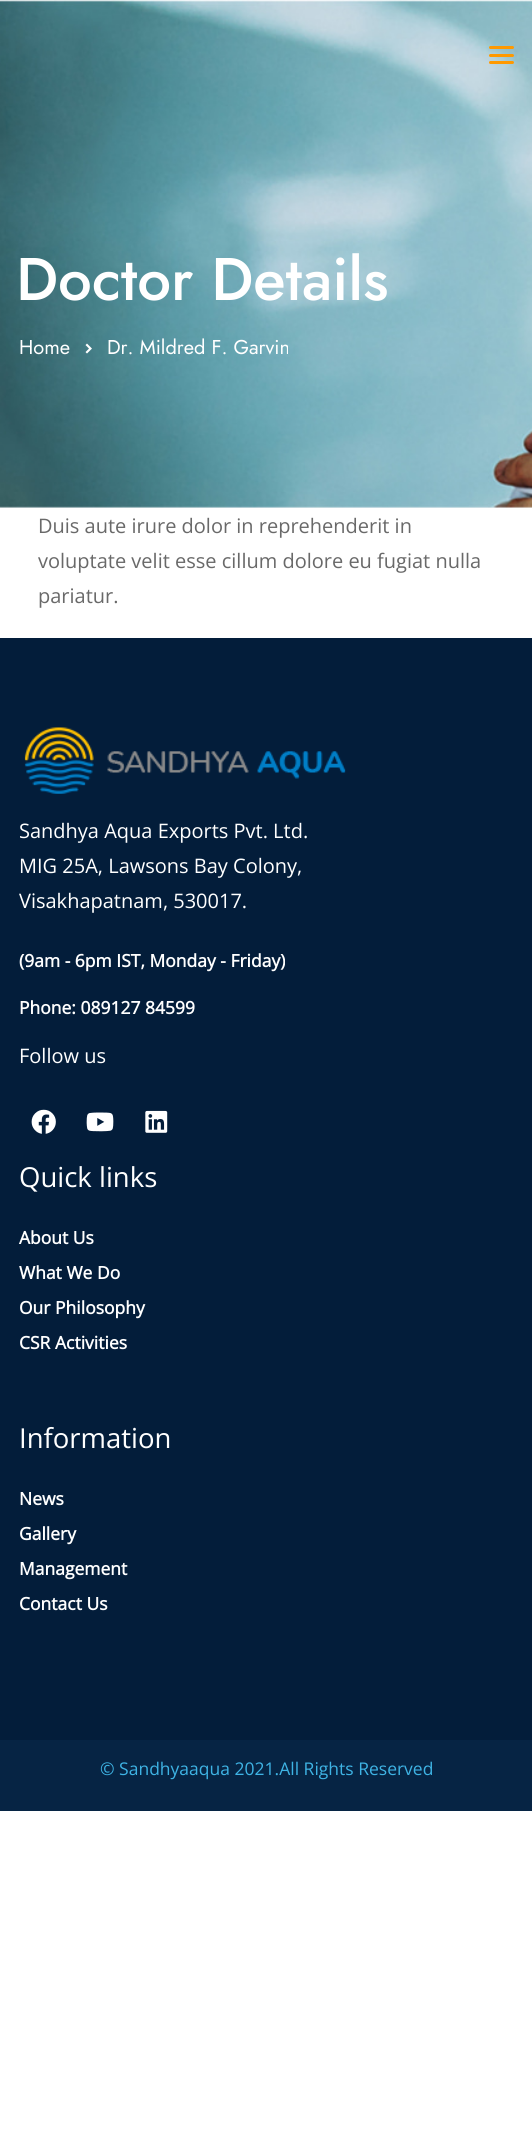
import math
import cairo

surface = cairo.ImageSurface(cairo.FORMAT_RGB24, 532, 2154)
cr = cairo.Context(surface)
options = cairo.FontOptions()
options.set_hint_metrics(cairo.HINT_METRICS_OFF)
options.set_hint_style(cairo.HINT_STYLE_NONE)
cr.set_font_options(options)
cr.set_miter_limit(4)


def rgb(code):
    cr.set_source_rgb(*(v / 255 for v in bytes.fromhex(code[-6:])))


def rrect(x, y, w, h, r):
    cr.new_sub_path()
    for i, (u, v) in enumerate([(x + w - r, y + h - r), (x + r, y + h - r), (x + r, y + r), (x + w - r, y + r)]):
        cr.arc(u, v, r, i * math.pi / 2, (i + 1) * math.pi / 2)
    cr.close_path()


def image(path, x, y, w, h):
    cr.save()
    cr.set_source_surface(cairo.ImageSurface.create_from_png(path), x, y)
    cr.rectangle(x, y, w, h)
    cr.fill()
    cr.restore()


rgb("#ffffff")
cr.paint()
rgb("#eff0f2")
cr.rectangle(0, 507, 532, 1)
cr.fill()
image("img/1.png", 0, 0, 532, 508)
rgb("#ff9900")
rrect(489, 54, 25, 3, 1.5)
cr.fill()
rrect(489, 46, 25, 3, 1.5)
cr.fill()
rrect(489, 61, 25, 3, 1.5)
cr.fill()
image("img/2.png", 85, 343, 7, 11)
rgb("#031d3a")
cr.rectangle(0, 638, 532, 1102)
cr.fill()
image("img/3.png", 24, 727, 322, 67)
image("img/4.png", 31, 1109, 25, 25)
image("img/5.png", 86, 1112, 28, 20)
image("img/6.png", 145, 1110, 23, 23)
rgb("#062444")
cr.rectangle(0, 1740, 532, 71)
cr.fill()
cr.select_font_face("Jost Medium")
cr.set_font_size(60)
rgb("#ffffff")
cr.move_to(16, 300)
cr.show_text("Doctor Details")
cr.select_font_face("Jost")
cr.set_font_size(20)
cr.move_to(19, 354)
cr.show_text("Home")
cr.move_to(107, 354)
cr.show_text("Dr. Mildred F. Garvin")
cr.select_font_face("Open Sans")
rgb("#696969")
for x, y, s in [
    (38, 533, "Duis aute irure dolor in reprehenderit in"),
    (38, 568, "voluptate velit esse cillum dolore eu fugiat nulla"),
    (38, 603, "pariatur."),
]:
    cr.move_to(x, y)
    cr.show_text(s)
rgb("#ffffff")
for x, y, s in [
    (19, 838, "Sandhya Aqua Exports Pvt. Ltd."),
    (19, 873, "MIG 25A, Lawsons Bay Colony,"),
    (19, 908, "Visakhapatnam, 530017."),
]:
    cr.move_to(x, y)
    cr.show_text(s)
cr.select_font_face("Open Sans", cairo.FONT_SLANT_NORMAL, cairo.FONT_WEIGHT_BOLD)
cr.set_font_size(17.5)
cr.move_to(19, 967)
cr.show_text("(9am - 6pm IST, Monday - Friday)")
cr.move_to(19, 1014)
cr.show_text("Phone: 089127 84599")
cr.select_font_face("Open Sans")
cr.set_font_size(20)
cr.move_to(19, 1063)
cr.show_text("Follow us")
cr.set_font_size(27.5)
cr.move_to(19, 1187)
cr.show_text("Quick links")
cr.select_font_face("Open Sans", cairo.FONT_SLANT_NORMAL, cairo.FONT_WEIGHT_BOLD)
cr.set_font_size(17.5)
for x, y, s in [
    (19, 1244, "About Us"),
    (19, 1279, "What We Do"),
    (19, 1314, "Our Philosophy"),
    (19, 1349, "CSR Activities"),
]:
    cr.move_to(x, y)
    cr.show_text(s)
cr.select_font_face("Open Sans")
cr.set_font_size(27.5)
cr.move_to(19, 1448)
cr.show_text("Information")
cr.select_font_face("Open Sans", cairo.FONT_SLANT_NORMAL, cairo.FONT_WEIGHT_BOLD)
cr.set_font_size(17.5)
for x, y, s in [
    (19, 1505, "News"),
    (19, 1540, "Gallery"),
    (19, 1575, "Management"),
    (19, 1610, "Contact Us"),
]:
    cr.move_to(x, y)
    cr.show_text(s)
cr.select_font_face("Open Sans")
rgb("#3eb3e4")
cr.move_to(100, 1775)
cr.show_text("© Sandhyaaqua 2021.All Rights Reserved")
surface.write_to_png("page.png")
